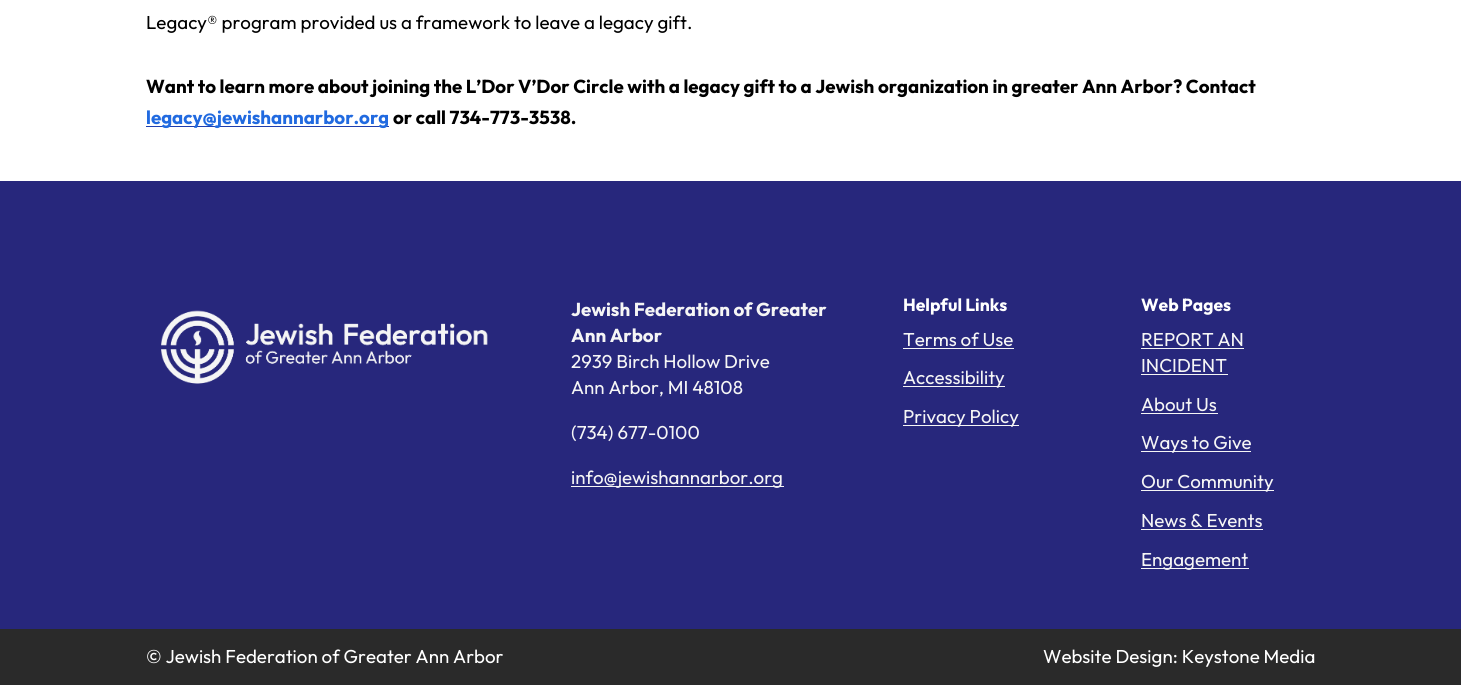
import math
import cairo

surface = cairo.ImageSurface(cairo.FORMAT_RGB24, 1461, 685)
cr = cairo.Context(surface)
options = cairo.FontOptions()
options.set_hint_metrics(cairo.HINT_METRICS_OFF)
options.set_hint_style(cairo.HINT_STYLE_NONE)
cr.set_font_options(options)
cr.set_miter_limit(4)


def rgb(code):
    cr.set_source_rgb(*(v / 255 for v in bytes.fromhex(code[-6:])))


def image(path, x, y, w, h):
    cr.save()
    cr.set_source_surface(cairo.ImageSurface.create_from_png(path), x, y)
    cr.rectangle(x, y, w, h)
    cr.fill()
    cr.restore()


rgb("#27277c")
cr.paint()
rgb("#ffffff")
cr.rectangle(0, 0, 1461, 181)
cr.fill()
rgb("#1e3eaf")
cr.rectangle(146, 126, 243, 1)
cr.fill()
image("img/1.png", 161, 310, 327, 74)
for x, y, w, h, color in [
    (571, 486, 213, 1, "#f5f5f5"),
    (903, 348, 111, 1, "#f5f5f5"),
    (903, 386, 102, 1, "#f5f5f5"),
    (903, 425, 116, 1, "#f5f5f5"),
    (1141, 348, 103, 1, "#f5f5f5"),
    (1141, 374, 87, 1, "#f5f5f5"),
    (1141, 413, 77, 1, "#f5f5f5"),
    (1141, 451, 110, 1, "#f5f5f5"),
    (1141, 490, 133, 1, "#f5f5f5"),
    (1141, 529, 122, 1, "#f5f5f5"),
    (1141, 568, 108, 1, "#f5f5f5"),
    (0, 629, 1461, 56, "#2a2a2a"),
]:
    rgb(color)
    cr.rectangle(x, y, w, h)
    cr.fill()
cr.select_font_face("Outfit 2 Thin")
cr.set_font_size(18.75)
rgb("#000000")
cr.move_to(146, 29)
cr.show_text("Legacy® program provided us a framework to leave a legacy gift.")
cr.select_font_face("Outfit Thin")
cr.move_to(146, 93)
cr.show_text("Want to learn more about joining the L’Dor V’Dor Circle with a legacy gift to a Jewish organization in greater Ann Arbor? Contact")
rgb("#216ae0")
cr.move_to(146, 124)
cr.show_text("legacy@jewishannarbor.org")
rgb("#000000")
cr.move_to(393, 124)
cr.show_text("or call 734-773-3538.")
rgb("#f5f5f5")
cr.move_to(571, 316)
cr.show_text("Jewish Federation of Greater")
cr.move_to(571, 342)
cr.show_text("Ann Arbor")
cr.select_font_face("Outfit 2 Thin")
for x, y, s in [
    (571, 368, "2939 Birch Hollow Drive"),
    (571, 394, "Ann Arbor, MI 48108"),
    (571, 439, "(734) 677-0100"),
    (571, 484, "info@jewishannarbor.org"),
]:
    cr.move_to(x, y)
    cr.show_text(s)
cr.select_font_face("Outfit Thin")
cr.set_font_size(17.5)
rgb("#ffffff")
cr.move_to(903, 311)
cr.show_text("Helpful Links")
cr.select_font_face("Outfit 2 Thin")
cr.set_font_size(18.75)
rgb("#f5f5f5")
for x, y, s in [
    (903, 346, "Terms of Use"),
    (903, 384, "Accessibility"),
    (903, 423, "Privacy Policy"),
]:
    cr.move_to(x, y)
    cr.show_text(s)
cr.select_font_face("Outfit Thin")
cr.set_font_size(17.5)
rgb("#ffffff")
cr.move_to(1141, 311)
cr.show_text("Web Pages")
cr.select_font_face("Outfit 2 Thin")
cr.set_font_size(18.75)
rgb("#f5f5f5")
for x, y, s in [
    (1141, 346, "REPORT AN"),
    (1141, 372, "INCIDENT"),
    (1141, 411, "About Us"),
    (1141, 449, "Ways to Give"),
    (1141, 488, "Our Community"),
    (1141, 527, "News & Events"),
    (1141, 566, "Engagement"),
]:
    cr.move_to(x, y)
    cr.show_text(s)
rgb("#ffffff")
cr.move_to(146, 663)
cr.show_text("© Jewish Federation of Greater Ann Arbor")
cr.move_to(1043, 663)
cr.show_text("Website Design: Keystone Media")
surface.write_to_png("page.png")
